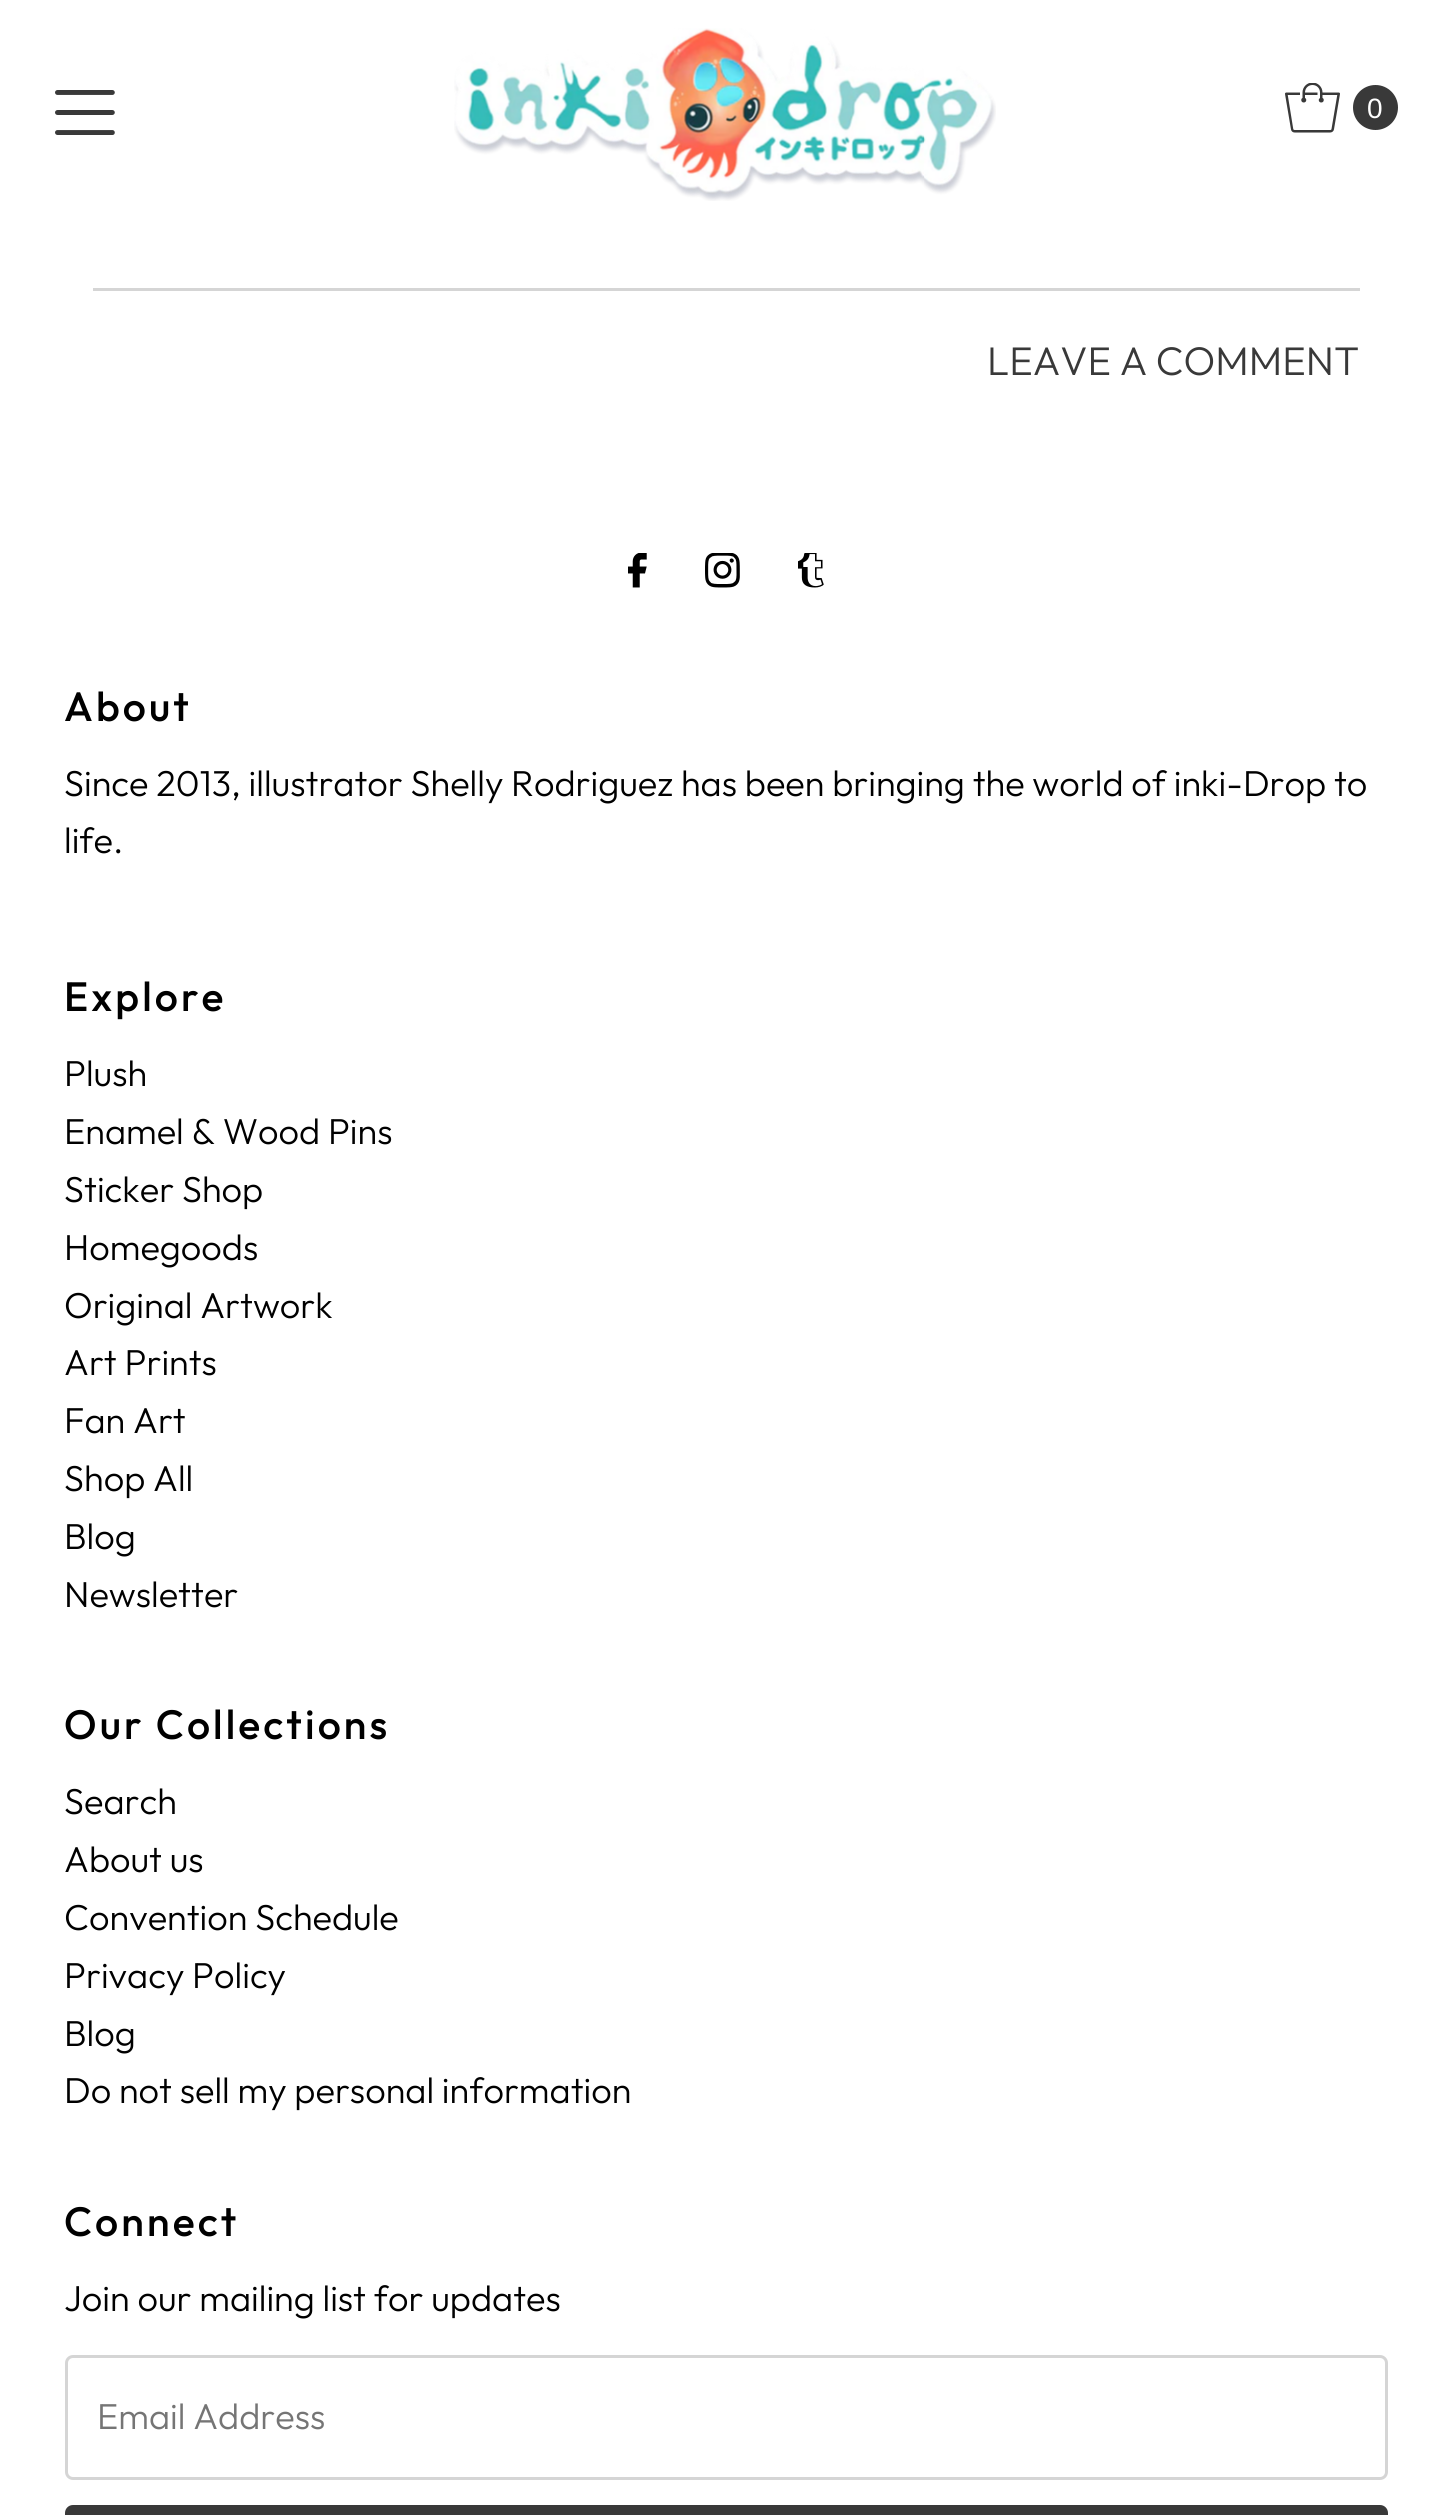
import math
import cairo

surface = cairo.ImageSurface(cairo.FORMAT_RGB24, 1451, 2515)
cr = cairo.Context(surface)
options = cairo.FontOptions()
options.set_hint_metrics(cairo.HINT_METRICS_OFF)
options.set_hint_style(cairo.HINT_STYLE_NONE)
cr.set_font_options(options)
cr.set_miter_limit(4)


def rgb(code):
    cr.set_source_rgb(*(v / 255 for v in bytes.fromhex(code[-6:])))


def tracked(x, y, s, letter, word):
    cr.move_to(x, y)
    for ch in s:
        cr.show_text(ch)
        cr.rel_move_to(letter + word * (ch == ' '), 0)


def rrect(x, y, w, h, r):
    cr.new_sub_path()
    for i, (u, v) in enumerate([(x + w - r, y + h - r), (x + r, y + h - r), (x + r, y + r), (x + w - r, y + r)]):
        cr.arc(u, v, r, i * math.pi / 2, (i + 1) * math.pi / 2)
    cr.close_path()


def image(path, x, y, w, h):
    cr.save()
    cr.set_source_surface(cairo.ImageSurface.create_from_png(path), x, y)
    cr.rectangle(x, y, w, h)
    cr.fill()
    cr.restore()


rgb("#ffffff")
cr.paint()
image("img/1.png", 55, 90, 60, 45)
image("img/2.png", 454, 28, 542, 173)
image("img/3.png", 1285, 83, 55, 50)
rgb("#393939")
cr.arc(1375.5, 107.5, 22.5, 0, 2 * math.pi)
cr.fill()
rgb("#d5d5d5")
cr.rectangle(93, 288, 1267, 3)
cr.fill()
image("img/4.png", 628, 553, 19, 35)
image("img/5.png", 705, 553, 35, 35)
image("img/6.png", 798, 553, 26, 35)
rrect(66.5, 2356.5, 1320, 122, 6.5)
cr.set_line_width(3)
cr.stroke()
rgb("#393939")
rrect(65, 2505, 1323, 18, 8)
cr.fill()
cr.select_font_face("Liberation Sans")
cr.set_font_size(28)
rgb("#ffffff")
cr.move_to(1367, 118)
cr.show_text("0")
cr.select_font_face("Outfit Light")
cr.set_font_size(40)
rgb("#393939")
cr.move_to(987, 375)
cr.show_text("LEAVE A COMMENT")
cr.select_font_face("Outfit Medium")
cr.set_font_size(41)
rgb("#000000")
tracked(64, 721, "About", 3.1, 0)
cr.select_font_face("Outfit Light")
cr.set_font_size(36.1)
cr.move_to(64, 796)
cr.show_text("Since 2013, illustrator Shelly Rodriguez has been bringing the world of inki-Drop to")
cr.move_to(64, 853)
cr.show_text("life.")
cr.select_font_face("Outfit Medium")
cr.set_font_size(41)
tracked(64, 1011, "Explore", 3.1, 0)
cr.select_font_face("Outfit Light")
cr.set_font_size(36.1)
for x, y, s in [
    (64, 1086, "Plush"),
    (64, 1144, "Enamel & Wood Pins"),
    (64, 1202, "Sticker Shop"),
    (64, 1260, "Homegoods"),
    (64, 1318, "Original Artwork"),
    (64, 1375, "Art Prints"),
    (64, 1433, "Fan Art"),
    (64, 1491, "Shop All"),
    (64, 1549, "Blog"),
    (64, 1607, "Newsletter"),
]:
    cr.move_to(x, y)
    cr.show_text(s)
cr.select_font_face("Outfit Medium")
cr.set_font_size(41)
tracked(64, 1739, "Our Collections", 3.1, 0)
cr.select_font_face("Outfit Light")
cr.set_font_size(36.1)
for x, y, s in [
    (64, 1814, "Search"),
    (64, 1872, "About us"),
    (64, 1930, "Convention Schedule"),
    (64, 1988, "Privacy Policy"),
    (64, 2046, "Blog"),
    (64, 2103, "Do not sell my personal information"),
]:
    cr.move_to(x, y)
    cr.show_text(s)
cr.select_font_face("Outfit Medium")
cr.set_font_size(41)
tracked(64, 2236, "Connect", 3.1, 0)
cr.select_font_face("Outfit Light")
cr.set_font_size(36.1)
cr.move_to(64, 2311)
cr.show_text("Join our mailing list for updates")
rgb("#757575")
cr.move_to(97, 2429)
cr.show_text("Email Address")
surface.write_to_png("page.png")
